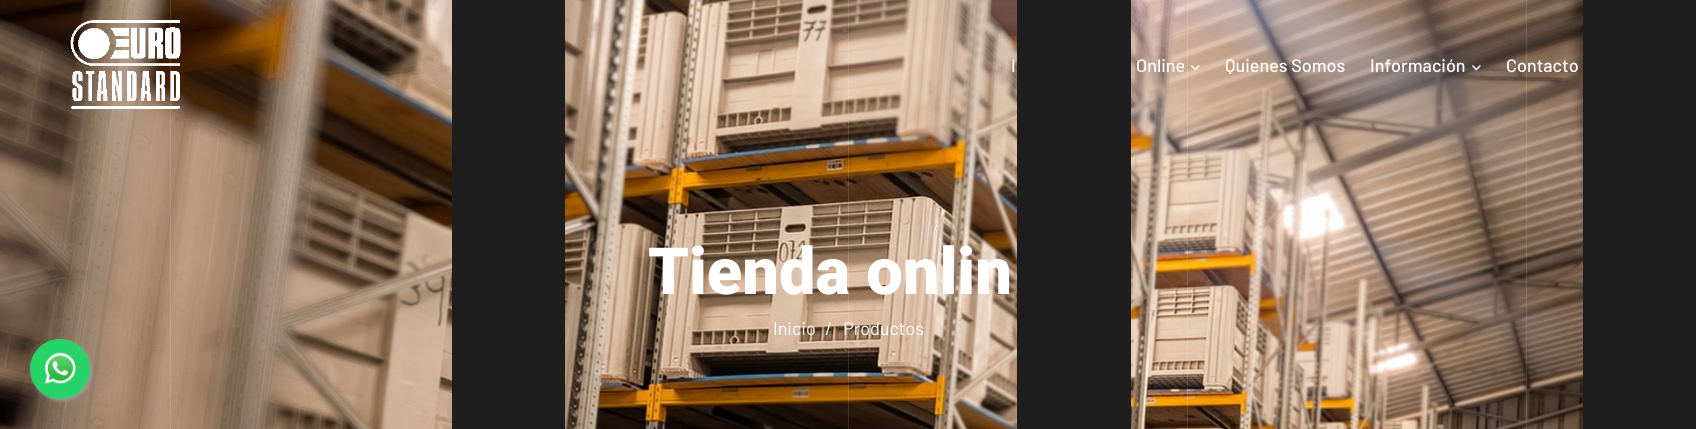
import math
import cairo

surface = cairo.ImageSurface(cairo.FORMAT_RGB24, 1696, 429)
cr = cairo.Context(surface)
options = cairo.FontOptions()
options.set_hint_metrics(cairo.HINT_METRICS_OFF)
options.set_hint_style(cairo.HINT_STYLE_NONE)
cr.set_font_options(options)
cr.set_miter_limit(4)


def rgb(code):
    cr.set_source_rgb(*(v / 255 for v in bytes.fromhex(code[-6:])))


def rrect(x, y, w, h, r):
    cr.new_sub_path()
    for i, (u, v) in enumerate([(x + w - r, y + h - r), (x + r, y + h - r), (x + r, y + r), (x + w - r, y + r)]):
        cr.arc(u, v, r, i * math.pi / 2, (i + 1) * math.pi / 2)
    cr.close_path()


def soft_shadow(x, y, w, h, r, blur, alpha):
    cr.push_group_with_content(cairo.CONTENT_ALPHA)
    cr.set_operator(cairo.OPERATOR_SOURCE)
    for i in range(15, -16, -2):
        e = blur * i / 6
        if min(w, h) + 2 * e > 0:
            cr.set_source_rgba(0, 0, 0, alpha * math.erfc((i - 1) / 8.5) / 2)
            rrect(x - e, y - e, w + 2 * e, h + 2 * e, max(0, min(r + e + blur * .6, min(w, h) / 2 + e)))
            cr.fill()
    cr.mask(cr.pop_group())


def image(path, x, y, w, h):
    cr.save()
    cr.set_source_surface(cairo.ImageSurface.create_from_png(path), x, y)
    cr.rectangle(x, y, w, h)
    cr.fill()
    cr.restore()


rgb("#ffffff")
cr.paint()
image("img/4.png", 0, 0, 1583, 429)
rgb("#1e1e1e")
cr.rectangle(452, 0, 113, 429)
cr.rectangle(1017, 0, 114, 429)
cr.rectangle(1583, 0, 113, 429)
cr.fill()
cr.set_source_rgba(1, 1, 1, 0.12)
cr.rectangle(170, 0, 1, 429)
cr.fill()
image("img/1.png", 70, 20, 111, 89)
image("img/2.png", 1191, 65, 9, 6)
image("img/3.png", 1472, 65, 9, 6)
cr.rectangle(848, 0, 1, 429)
cr.fill()
cr.rectangle(1187, 0, 1, 429)
cr.fill()
cr.rectangle(1526, 0, 1, 429)
cr.fill()
rgb("#999999")
soft_shadow(32, 341, 60, 60, 30, 1.5, 1)
rgb("#25d366")
cr.arc(60, 369, 30, 0, 2 * math.pi)
cr.fill()
image("img/5.png", 44, 352, 32, 32)
cr.select_font_face("Barlow Medium")
cr.set_font_size(18)
rgb("#ffffff")
for x, y, s in [
    (1011, 72, "I"),
    (1136, 72, "Online"),
    (1225, 72, "Quienes Somos"),
    (1370, 72, "Información"),
    (1506, 72, "Contacto"),
]:
    cr.move_to(x, y)
    cr.show_text(s)
cr.select_font_face("Roboto Black")
cr.set_font_size(65)
cr.move_to(648, 294)
cr.show_text("Tienda onlin")
cr.select_font_face("Barlow")
cr.set_font_size(18)
for x, y, s in [
    (773, 335, "Inicio"),
    (825, 335, "/"),
    (843, 335, "Productos"),
]:
    cr.move_to(x, y)
    cr.show_text(s)
surface.write_to_png("page.png")
